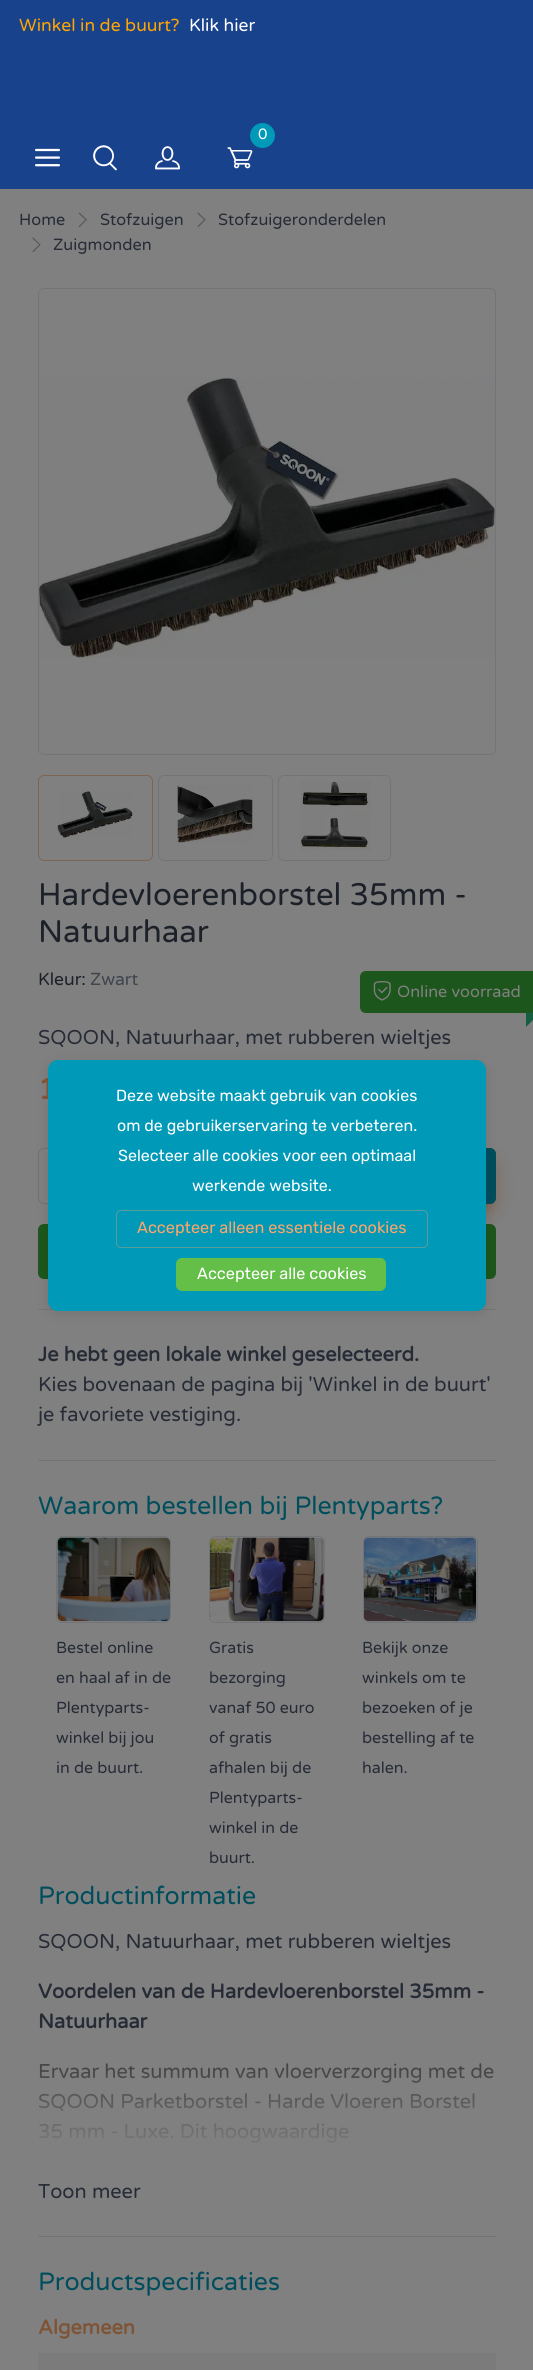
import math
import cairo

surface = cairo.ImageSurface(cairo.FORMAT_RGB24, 533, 2370)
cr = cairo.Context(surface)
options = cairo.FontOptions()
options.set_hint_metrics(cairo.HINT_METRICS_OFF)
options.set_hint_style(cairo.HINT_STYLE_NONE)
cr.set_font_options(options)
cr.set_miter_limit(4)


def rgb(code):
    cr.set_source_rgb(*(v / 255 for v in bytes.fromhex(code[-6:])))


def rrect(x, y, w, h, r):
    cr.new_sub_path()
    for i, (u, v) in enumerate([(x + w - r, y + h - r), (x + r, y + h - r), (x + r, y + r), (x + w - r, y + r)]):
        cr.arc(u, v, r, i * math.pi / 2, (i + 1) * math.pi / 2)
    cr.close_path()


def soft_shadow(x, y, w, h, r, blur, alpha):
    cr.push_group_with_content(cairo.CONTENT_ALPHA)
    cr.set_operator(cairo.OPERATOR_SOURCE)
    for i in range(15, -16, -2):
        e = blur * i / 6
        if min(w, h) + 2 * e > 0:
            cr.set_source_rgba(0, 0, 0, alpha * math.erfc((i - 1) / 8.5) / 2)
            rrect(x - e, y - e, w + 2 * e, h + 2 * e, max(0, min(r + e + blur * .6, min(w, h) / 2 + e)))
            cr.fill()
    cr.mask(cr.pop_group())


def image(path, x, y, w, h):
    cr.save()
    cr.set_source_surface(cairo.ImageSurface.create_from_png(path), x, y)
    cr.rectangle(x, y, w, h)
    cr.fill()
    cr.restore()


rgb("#808080")
cr.paint()
rgb("#19428d")
cr.rectangle(0, 0, 533, 189)
cr.fill()
image("img/1.png", 227, 147, 26, 22)
rgb("#0099b7")
cr.arc(262.5, 135.5, 12.5, 0, 2 * math.pi)
cr.fill()
image("img/2.png", 35, 148, 25, 19)
image("img/3.png", 93, 145, 24, 26)
image("img/4.png", 155, 146, 25, 24)
image("img/5.png", 78, 212, 9, 16)
image("img/6.png", 197, 212, 9, 15)
image("img/6.png", 32, 237, 9, 15)
rrect(38.5, 288.5, 457, 466, 5.5)
rgb("#727578")
cr.set_line_width(1)
cr.stroke()
image("img/7.png", 39, 377, 456, 281)
rrect(38.5, 775.5, 114, 85, 5.5)
rgb("#7d6554")
cr.stroke()
image("img/8.png", 57, 791, 76, 47)
rrect(158.5, 775.5, 114, 85, 5.5)
rgb("#727578")
cr.stroke()
image("img/9.png", 177, 785, 76, 58)
rrect(278.5, 775.5, 112, 85, 5.5)
cr.stroke()
image("img/10.png", 300, 781, 71, 70)
rgb("#1d561d")
cr.new_path()
cr.move_to(366, 971)
cr.line_to(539, 971)
cr.line_to(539, 1013)
cr.line_to(366, 1013)
cr.curve_to(362.5, 1013, 360, 1010.5, 360, 1007)
cr.line_to(360, 977)
cr.curve_to(360, 973.5, 362.5, 971, 366, 971)
cr.close_path()
cr.fill()
image("img/11.png", 373, 981, 18, 20)
rgb("#155e3f")
cr.new_path()
cr.move_to(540.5, 1012.5)
cr.line_to(526, 1027)
cr.line_to(526, 1012.5)
cr.close_path()
cr.fill()
rrect(38.5, 1148.5, 99, 55, 5.5)
rgb("#6d7174")
cr.stroke()
rgb("#1d561d")
rrect(38, 1224, 458, 55, 6)
cr.fill()
rgb("#773304")
soft_shadow(168, 1168, 318, 36, 0, 11, 0.9)
rgb("#004d5c")
rrect(158.5, 1148.5, 337, 55, 5.5)
cr.fill_preserve()
cr.stroke()
rgb("#727578")
cr.rectangle(38, 1309, 458, 1)
cr.fill()
cr.rectangle(38, 1460, 458, 1)
cr.fill()
rrect(56.5, 1536.5, 114, 86, 5.5)
cr.stroke()
image("img/12.png", 57, 1537, 113, 85)
rrect(209.5, 1536.5, 115, 86, 5.5)
cr.stroke()
image("img/13.png", 210, 1537, 114, 85)
rrect(363.5, 1536.5, 114, 86, 5.5)
cr.stroke()
image("img/14.png", 363, 1537, 114, 85)
cr.rectangle(38, 2236, 458, 1)
cr.fill()
rgb("#7b7b7b")
cr.rectangle(38, 2353, 458, 17)
cr.fill()
rgb("#000000")
soft_shadow(48, 1063, 438, 251, 10, 6, 0.1)
cr.select_font_face("Varela Round")
cr.set_font_size(17.5)
rgb("#ffa500")
cr.move_to(19, 31)
cr.show_text("Winkel in de buurt?")
rgb("#ffffff")
cr.move_to(189, 31)
cr.show_text("Klik hier")
cr.set_font_size(15)
cr.move_to(258, 139)
cr.show_text("0")
cr.set_font_size(16.25)
rgb("#262b36")
for x, y, s in [
    (19, 225, "Home"),
    (100, 225, "Stofzuigen"),
    (218, 225, "Stofzuigeronderdelen"),
    (53, 250, "Zuigmonden"),
]:
    cr.move_to(x, y)
    cr.show_text(s)
cr.set_font_size(31.25)
rgb("#1c2028")
cr.move_to(38, 905)
cr.show_text("Hardevloerenborstel 35mm -")
cr.move_to(38, 942)
cr.show_text("Natuurhaar")
cr.set_font_size(17.5)
cr.move_to(38, 985)
cr.show_text("Kleur:")
rgb("#3f444e")
cr.move_to(90, 985)
cr.show_text("Zwart")
cr.set_font_size(16.25)
rgb("#808080")
cr.move_to(397, 997)
cr.show_text("Online voorraad")
cr.set_font_size(20)
rgb("#262b36")
cr.move_to(38, 1044)
cr.show_text("SQOON, Natuurhaar, met rubberen wieltjes")
cr.select_font_face("Varela Round", cairo.FONT_SLANT_NORMAL, cairo.FONT_WEIGHT_BOLD)
cr.set_font_size(29)
rgb("#7f5335")
cr.move_to(38, 1099)
cr.show_text("1")
cr.set_font_size(20)
rgb("#262b36")
cr.move_to(38, 1361)
cr.show_text("Je hebt geen lokale winkel geselecteerd.")
cr.select_font_face("Varela Round")
cr.move_to(38, 1391)
cr.show_text("Kies bovenaan de pagina bij 'Winkel in de buurt'")
cr.move_to(38, 1421)
cr.show_text("je favoriete vestiging.")
cr.set_font_size(25)
rgb("#004d5c")
cr.move_to(38, 1514)
cr.show_text("Waarom bestellen bij Plentyparts?")
cr.set_font_size(16)
rgb("#262b36")
for x, y, s in [
    (56, 1653, "Bestel online"),
    (56, 1683, "en haal af in de"),
    (56, 1713, "Plentyparts-"),
    (56, 1743, "winkel bij jou"),
    (56, 1773, "in de buurt."),
    (209, 1653, "Gratis"),
    (209, 1683, "bezorging"),
    (209, 1713, "vanaf 50 euro"),
    (209, 1743, "of gratis"),
    (209, 1773, "afhalen bij de"),
    (209, 1803, "Plentyparts-"),
    (209, 1833, "winkel in de"),
    (209, 1863, "buurt."),
    (362, 1653, "Bekijk onze"),
    (362, 1683, "winkels om te"),
    (362, 1713, "bezoeken of je"),
    (362, 1743, "bestelling af te"),
    (362, 1773, "halen."),
]:
    cr.move_to(x, y)
    cr.show_text(s)
cr.set_font_size(25)
rgb("#004d5c")
cr.move_to(38, 1904)
cr.show_text("Productinformatie")
cr.set_font_size(20)
rgb("#262b36")
cr.move_to(38, 1948)
cr.show_text("SQOON, Natuurhaar, met rubberen wieltjes")
cr.select_font_face("Varela Round", cairo.FONT_SLANT_NORMAL, cairo.FONT_WEIGHT_BOLD)
cr.move_to(38, 1998)
cr.show_text("Voordelen van de Hardevloerenborstel 35mm -")
cr.move_to(38, 2028)
cr.show_text("Natuurhaar")
cr.select_font_face("Varela Round")
gradient = cairo.LinearGradient(267, 2057, 267, 2157)
gradient.add_color_stop_rgba(0, 0.239, 0.239, 0.239, 1)
gradient.add_color_stop_rgba(1, 0.502, 0.502, 0.502, 1)
cr.set_source(gradient)
for x, y, s in [
    (38, 2078, "Ervaar het summum van vloerverzorging met de"),
    (38, 2108, "SQOON Parketborstel - Harde Vloeren Borstel"),
    (38, 2138, "35 mm - Luxe. Dit hoogwaardige"),
]:
    cr.move_to(x, y)
    cr.show_text(s)
rgb("#262b36")
cr.move_to(38, 2198)
cr.show_text("Toon meer")
cr.set_font_size(25)
rgb("#004d5c")
cr.move_to(38, 2290)
cr.show_text("Productspecificaties")
cr.select_font_face("Varela Round", cairo.FONT_SLANT_NORMAL, cairo.FONT_WEIGHT_BOLD)
cr.set_font_size(20)
rgb("#7f5335")
cr.move_to(38, 2334)
cr.show_text("Algemeen")
rgb("#0099b7")
rrect(48, 1060, 438, 251, 10)
cr.fill()
cr.select_font_face("Rubik")
cr.set_font_size(16)
rgb("#ffffff")
for x, y, s in [
    (116, 1101, "Deze website maakt gebruik van cookies"),
    (117, 1131, "om de gebruikerservaring te verbeteren."),
    (118, 1161, "Selecteer alle cookies voor een optimaal"),
    (192, 1191, "werkende website."),
]:
    cr.move_to(x, y)
    cr.show_text(s)
rrect(116.5, 1210.5, 311, 37, 4.5)
rgb("#599d9b")
cr.stroke()
cr.set_font_size(16.25)
rgb("#fea569")
cr.move_to(137, 1233)
cr.show_text("Accepteer alleen essentiele cookies")
rgb("#63bf47")
rrect(176, 1258, 210, 33, 6)
cr.fill()
rgb("#ffffff")
cr.move_to(197, 1279)
cr.show_text("Accepteer alle cookies")
surface.write_to_png("page.png")
